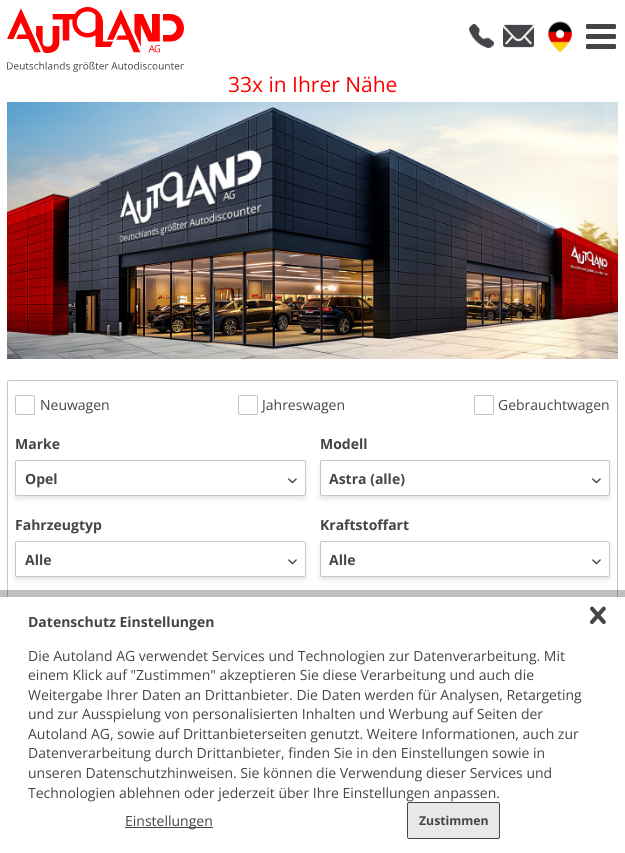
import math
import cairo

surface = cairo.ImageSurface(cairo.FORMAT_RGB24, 625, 853)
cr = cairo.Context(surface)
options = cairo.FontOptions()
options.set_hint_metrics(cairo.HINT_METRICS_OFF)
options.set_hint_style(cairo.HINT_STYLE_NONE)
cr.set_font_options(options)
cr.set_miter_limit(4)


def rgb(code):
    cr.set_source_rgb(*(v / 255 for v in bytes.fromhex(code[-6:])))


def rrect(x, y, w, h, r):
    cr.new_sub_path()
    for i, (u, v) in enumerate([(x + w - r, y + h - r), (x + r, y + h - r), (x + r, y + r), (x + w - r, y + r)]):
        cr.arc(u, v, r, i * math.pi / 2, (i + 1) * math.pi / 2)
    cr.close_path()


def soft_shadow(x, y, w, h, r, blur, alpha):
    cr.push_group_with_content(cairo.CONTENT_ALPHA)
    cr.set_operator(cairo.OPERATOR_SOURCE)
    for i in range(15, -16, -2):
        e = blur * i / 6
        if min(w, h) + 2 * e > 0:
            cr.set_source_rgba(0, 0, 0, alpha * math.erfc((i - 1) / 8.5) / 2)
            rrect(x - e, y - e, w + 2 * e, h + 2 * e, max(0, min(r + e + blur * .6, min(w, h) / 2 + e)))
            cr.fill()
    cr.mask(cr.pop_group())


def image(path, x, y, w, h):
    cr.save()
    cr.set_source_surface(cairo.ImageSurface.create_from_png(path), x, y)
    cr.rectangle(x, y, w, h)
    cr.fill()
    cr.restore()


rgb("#ffffff")
cr.paint()
image("img/1.png", 7, 7, 177, 65)
image("img/2.png", 469, 24, 25, 24)
image("img/3.png", 503, 24, 31, 24)
image("img/4.png", 547, 21, 26, 32)
image("img/5.png", 586, 24, 30, 25)
image("img/6.png", 7, 102, 611, 257)
rrect(7.5, 380.5, 610, 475, 1.5)
rgb("#c5c5c6")
cr.set_line_width(1)
cr.stroke()
rrect(15.5, 395.5, 19, 19, 1.5)
cr.stroke()
rrect(238.5, 395.5, 19, 19, 1.5)
cr.stroke()
rrect(474.5, 395.5, 19, 19, 1.5)
cr.stroke()
cr.save()
cr.set_fill_rule(cairo.FILL_RULE_EVEN_ODD)
cr.new_path()
cr.move_to(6, 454)
cr.line_to(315, 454)
cr.line_to(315, 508)
cr.line_to(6, 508)
cr.close_path()
cr.move_to(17, 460)
cr.line_to(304, 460)
cr.curve_to(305, 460, 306, 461, 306, 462)
cr.line_to(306, 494)
cr.curve_to(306, 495, 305, 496, 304, 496)
cr.line_to(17, 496)
cr.curve_to(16, 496, 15, 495, 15, 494)
cr.line_to(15, 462)
cr.curve_to(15, 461, 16, 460, 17, 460)
cr.close_path()
cr.clip()
rgb("#000000")
soft_shadow(15, 463, 291, 36, 2, 2.5, 0.1)
cr.restore()
rrect(15.5, 460.5, 290, 35, 1.5)
cr.set_source_rgba(0.263, 0.271, 0.282, 0.31)
cr.stroke()
image("img/7.png", 288, 478, 9, 6)
cr.save()
cr.set_fill_rule(cairo.FILL_RULE_EVEN_ODD)
cr.new_path()
cr.move_to(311, 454)
cr.line_to(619, 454)
cr.line_to(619, 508)
cr.line_to(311, 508)
cr.close_path()
cr.move_to(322, 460)
cr.line_to(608, 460)
cr.curve_to(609, 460, 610, 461, 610, 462)
cr.line_to(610, 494)
cr.curve_to(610, 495, 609, 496, 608, 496)
cr.line_to(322, 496)
cr.curve_to(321, 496, 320, 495, 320, 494)
cr.line_to(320, 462)
cr.curve_to(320, 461, 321, 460, 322, 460)
cr.close_path()
cr.clip()
rgb("#000000")
soft_shadow(320, 463, 290, 36, 2, 2.5, 0.1)
cr.restore()
rrect(320.5, 460.5, 289, 35, 1.5)
cr.stroke()
image("img/7.png", 592, 478, 9, 6)
cr.save()
cr.set_fill_rule(cairo.FILL_RULE_EVEN_ODD)
cr.new_path()
cr.move_to(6, 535)
cr.line_to(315, 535)
cr.line_to(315, 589)
cr.line_to(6, 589)
cr.close_path()
cr.move_to(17, 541)
cr.line_to(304, 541)
cr.curve_to(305, 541, 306, 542, 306, 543)
cr.line_to(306, 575)
cr.curve_to(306, 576, 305, 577, 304, 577)
cr.line_to(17, 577)
cr.curve_to(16, 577, 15, 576, 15, 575)
cr.line_to(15, 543)
cr.curve_to(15, 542, 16, 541, 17, 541)
cr.close_path()
cr.clip()
rgb("#000000")
soft_shadow(15, 544, 291, 36, 2, 2.5, 0.1)
cr.restore()
rrect(15.5, 541.5, 290, 35, 1.5)
cr.stroke()
image("img/7.png", 288, 559, 9, 6)
cr.save()
cr.set_fill_rule(cairo.FILL_RULE_EVEN_ODD)
cr.new_path()
cr.move_to(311, 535)
cr.line_to(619, 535)
cr.line_to(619, 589)
cr.line_to(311, 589)
cr.close_path()
cr.move_to(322, 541)
cr.line_to(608, 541)
cr.curve_to(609, 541, 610, 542, 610, 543)
cr.line_to(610, 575)
cr.curve_to(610, 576, 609, 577, 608, 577)
cr.line_to(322, 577)
cr.curve_to(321, 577, 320, 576, 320, 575)
cr.line_to(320, 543)
cr.curve_to(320, 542, 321, 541, 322, 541)
cr.close_path()
cr.clip()
rgb("#000000")
soft_shadow(320, 544, 290, 36, 2, 2.5, 0.1)
cr.restore()
rrect(320.5, 541.5, 289, 35, 1.5)
cr.stroke()
image("img/7.png", 592, 559, 9, 6)
cr.rectangle(-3.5, 593.5, 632, 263)
cr.set_source_rgba(0, 0, 0, 0.25)
cr.set_line_width(7)
cr.stroke()
rgb("#ffffff")
cr.rectangle(7, 597, 611, 256)
cr.fill()
image("img/8.png", 590, 606, 16, 19)
rgb("#434548")
cr.rectangle(125, 827, 88, 1)
cr.fill()
rgb("#e8e8e8")
rrect(407.5, 802.5, 92, 36, 1.5)
cr.fill_preserve()
rgb("#434548")
cr.set_line_width(1)
cr.stroke()
cr.select_font_face("Open Sans")
cr.set_font_size(21)
rgb("#ff0000")
cr.move_to(228, 92)
cr.show_text("33x in Ihrer Nähe")
cr.set_font_size(14)
rgb("#434548")
for x, y, s in [
    (40, 410, "Neuwagen"),
    (262, 410, "Jahreswagen"),
    (498, 410, "Gebrauchtwagen"),
]:
    cr.move_to(x, y)
    cr.show_text(s)
cr.select_font_face("Open Sans", cairo.FONT_SLANT_NORMAL, cairo.FONT_WEIGHT_BOLD)
for x, y, s in [
    (15, 449, "Marke"),
    (25, 484, "Opel"),
    (320, 449, "Modell"),
    (329, 484, "Astra (alle)"),
    (15, 530, "Fahrzeugtyp"),
    (25, 565, "Alle"),
    (320, 530, "Kraftstoffart"),
    (329, 565, "Alle"),
    (28, 627, "Datenschutz Einstellungen"),
]:
    cr.move_to(x, y)
    cr.show_text(s)
cr.select_font_face("Open Sans")
for x, y, s in [
    (28, 661, "Die Autoland AG verwendet Services und Technologien zur Datenverarbeitung. Mit"),
    (28, 680, "einem Klick auf \"Zustimmen\" akzeptieren Sie diese Verarbeitung und auch die"),
    (28, 700, "Weitergabe Ihrer Daten an Drittanbieter. Die Daten werden für Analysen, Retargeting"),
    (28, 719, "und zur Ausspielung von personalisierten Inhalten und Werbung auf Seiten der"),
    (28, 739, "Autoland AG, sowie auf Drittanbieterseiten genutzt. Weitere Informationen, auch zur"),
    (28, 758, "Datenverarbeitung durch Drittanbieter, finden Sie in den Einstellungen sowie in"),
    (28, 778, "unseren Datenschutzhinweisen. Sie können die Verwendung dieser Services und"),
    (28, 798, "Technologien ablehnen oder jederzeit über Ihre Einstellungen anpassen."),
    (125, 826, "Einstellungen"),
]:
    cr.move_to(x, y)
    cr.show_text(s)
cr.select_font_face("Open Sans", cairo.FONT_SLANT_NORMAL, cairo.FONT_WEIGHT_BOLD)
cr.set_font_size(12.25)
cr.move_to(419, 825)
cr.show_text("Zustimmen")
surface.write_to_png("page.png")
